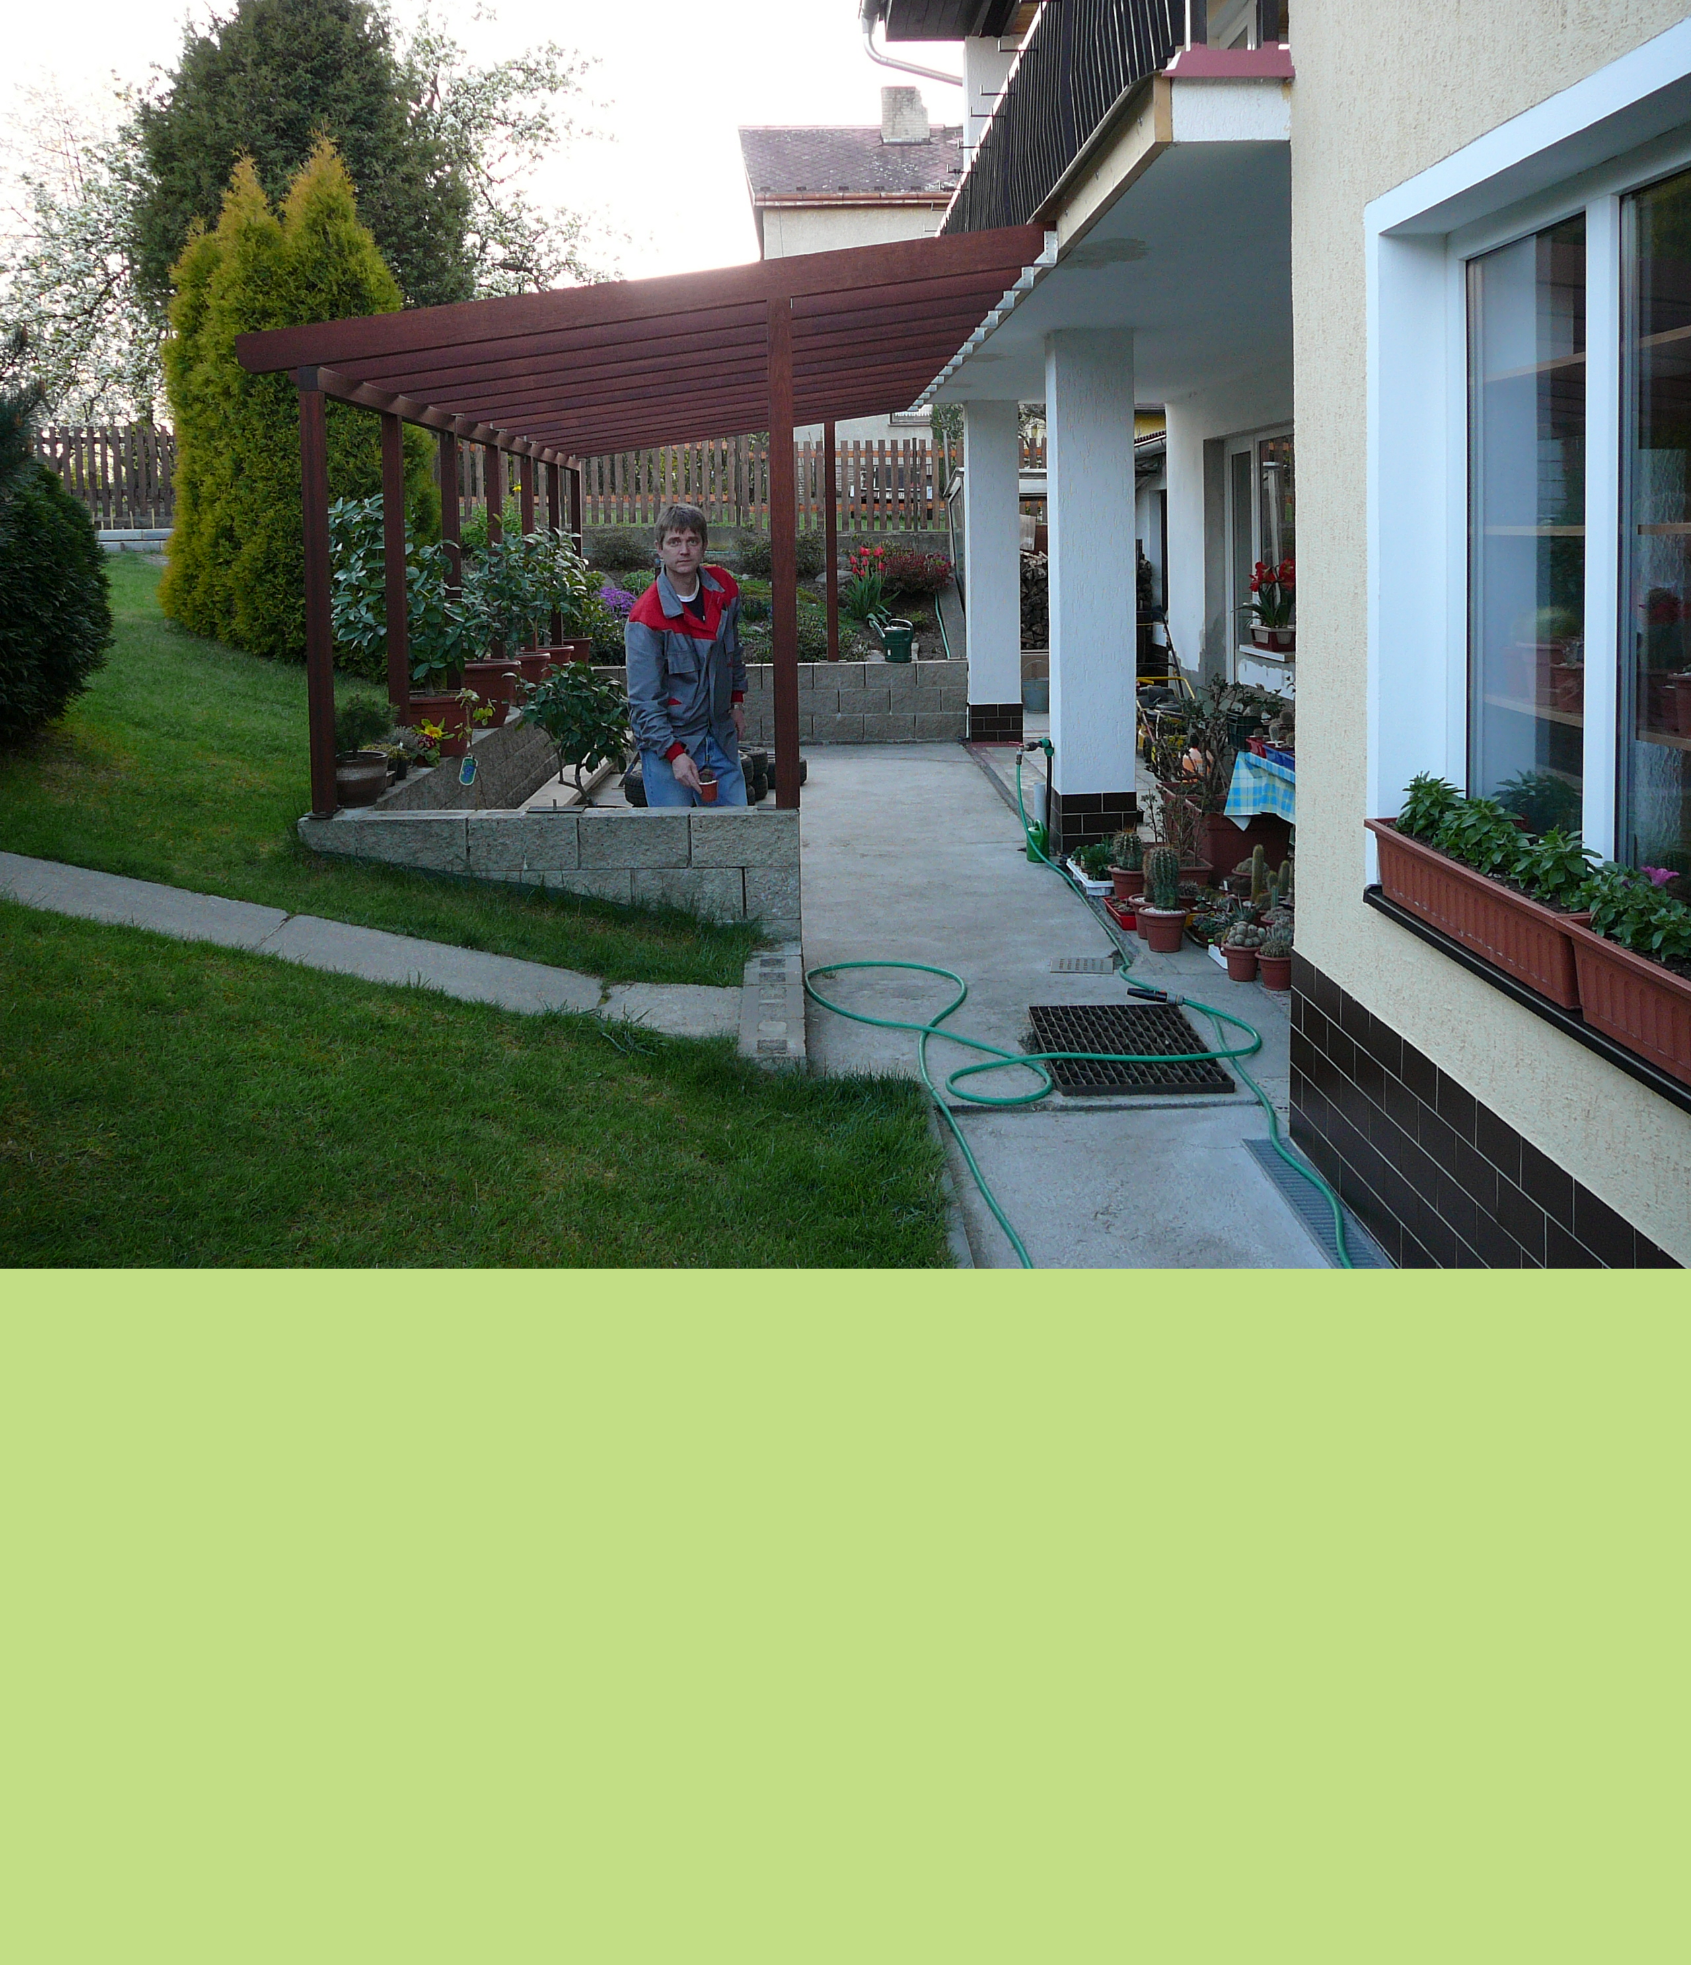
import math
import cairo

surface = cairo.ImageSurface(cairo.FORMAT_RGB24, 1691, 1965)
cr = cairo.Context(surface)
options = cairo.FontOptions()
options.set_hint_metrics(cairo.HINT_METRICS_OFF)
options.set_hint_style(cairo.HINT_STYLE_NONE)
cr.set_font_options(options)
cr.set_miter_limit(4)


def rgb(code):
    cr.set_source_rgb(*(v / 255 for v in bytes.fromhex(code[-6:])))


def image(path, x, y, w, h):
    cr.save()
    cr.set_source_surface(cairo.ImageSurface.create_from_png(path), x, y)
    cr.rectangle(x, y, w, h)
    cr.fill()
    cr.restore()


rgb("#c2de85")
cr.paint()
image("img/1.png", 0, 0, 1691, 1269)
surface.write_to_png("page.png")
